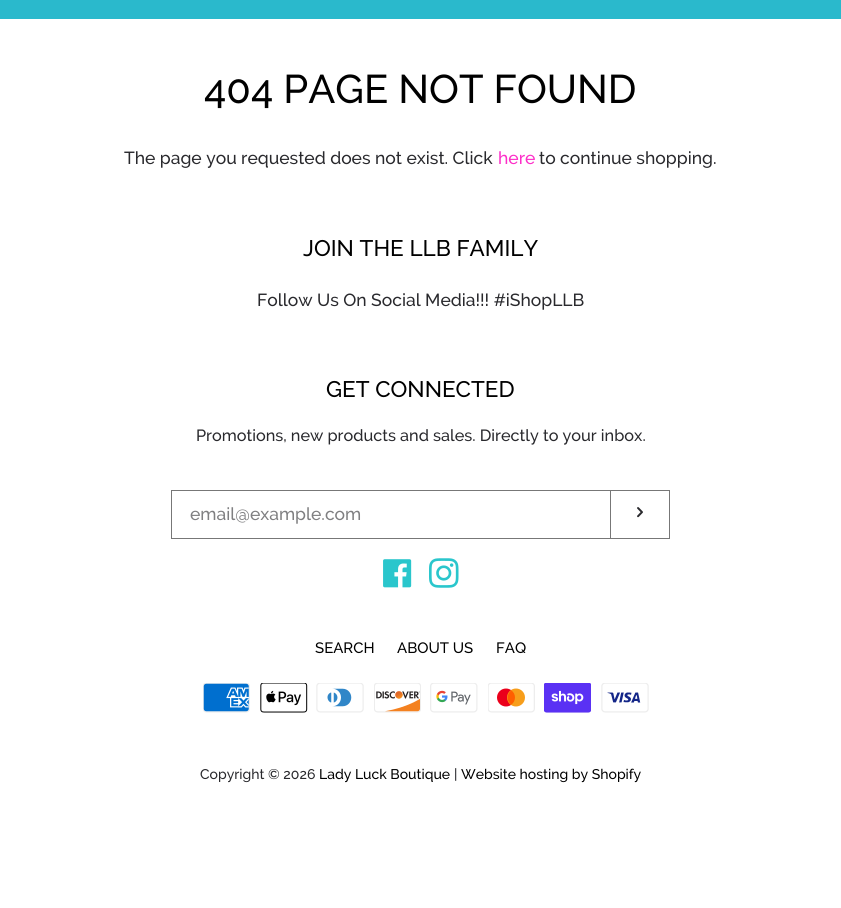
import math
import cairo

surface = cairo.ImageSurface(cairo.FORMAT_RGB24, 841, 908)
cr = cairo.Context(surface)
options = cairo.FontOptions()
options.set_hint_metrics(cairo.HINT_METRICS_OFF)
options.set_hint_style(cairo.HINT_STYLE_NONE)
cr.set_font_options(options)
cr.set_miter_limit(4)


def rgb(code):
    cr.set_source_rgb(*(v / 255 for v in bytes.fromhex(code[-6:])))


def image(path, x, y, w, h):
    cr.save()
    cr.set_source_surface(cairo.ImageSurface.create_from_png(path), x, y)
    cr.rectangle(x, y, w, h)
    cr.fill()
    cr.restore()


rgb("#2ab9cc")
cr.paint()
rgb("#ffffff")
cr.rectangle(0, 19, 841, 889)
cr.fill()
cr.rectangle(171.5, 490.5, 498, 48)
rgb("#777777")
cr.set_line_width(1)
cr.stroke()
cr.rectangle(610, 491, 1, 47)
cr.fill()
image("img/1.png", 637, 507, 6, 11)
image("img/2.png", 383, 559, 29, 29)
image("img/3.png", 429, 558, 30, 30)
image("img/4.png", 203, 683, 47, 30)
image("img/5.png", 260, 683, 48, 30)
image("img/6.png", 316, 683, 48, 30)
image("img/7.png", 374, 683, 47, 30)
image("img/8.png", 430, 683, 48, 30)
image("img/9.png", 488, 683, 47, 30)
image("img/10.png", 544, 683, 47, 30)
image("img/11.png", 601, 683, 48, 30)
cr.select_font_face("Raleway Medium")
cr.set_font_size(40)
rgb("#000000")
cr.move_to(204, 103)
cr.show_text("404 PAGE NOT FOUND")
cr.set_font_size(17.5)
rgb("#29292d")
cr.move_to(124, 164)
cr.show_text("The page you requested does not exist. Click")
rgb("#fd2fc8")
cr.move_to(498, 164)
cr.show_text("here")
rgb("#29292d")
cr.move_to(539, 164)
cr.show_text("to continue shopping.")
cr.set_font_size(22.5)
rgb("#000000")
cr.move_to(303, 256)
cr.show_text("JOIN THE LLB FAMILY")
cr.set_font_size(17.5)
rgb("#29292d")
cr.move_to(257, 306)
cr.show_text("Follow Us On Social Media!!! #iShopLLB")
cr.set_font_size(22.5)
rgb("#000000")
cr.move_to(326, 397)
cr.show_text("GET CONNECTED")
cr.set_font_size(16.25)
rgb("#29292d")
cr.move_to(196, 441)
cr.show_text("Promotions, new products and sales. Directly to your inbox.")
cr.set_font_size(17.5)
rgb("#7f7f81")
cr.move_to(190, 520)
cr.show_text("email@example.com")
cr.set_font_size(15)
rgb("#000000")
for x, y, s in [
    (315, 653, "SEARCH"),
    (397, 653, "ABOUT US"),
    (496, 653, "FAQ"),
]:
    cr.move_to(x, y)
    cr.show_text(s)
cr.set_font_size(14)
rgb("#29292d")
cr.move_to(200, 779)
cr.show_text("Copyright © 2026")
rgb("#000000")
cr.move_to(319, 779)
cr.show_text("Lady Luck Boutique")
rgb("#29292d")
cr.move_to(454, 779)
cr.show_text("|")
rgb("#000000")
cr.move_to(461, 779)
cr.show_text("Website hosting by Shopify")
surface.write_to_png("page.png")
